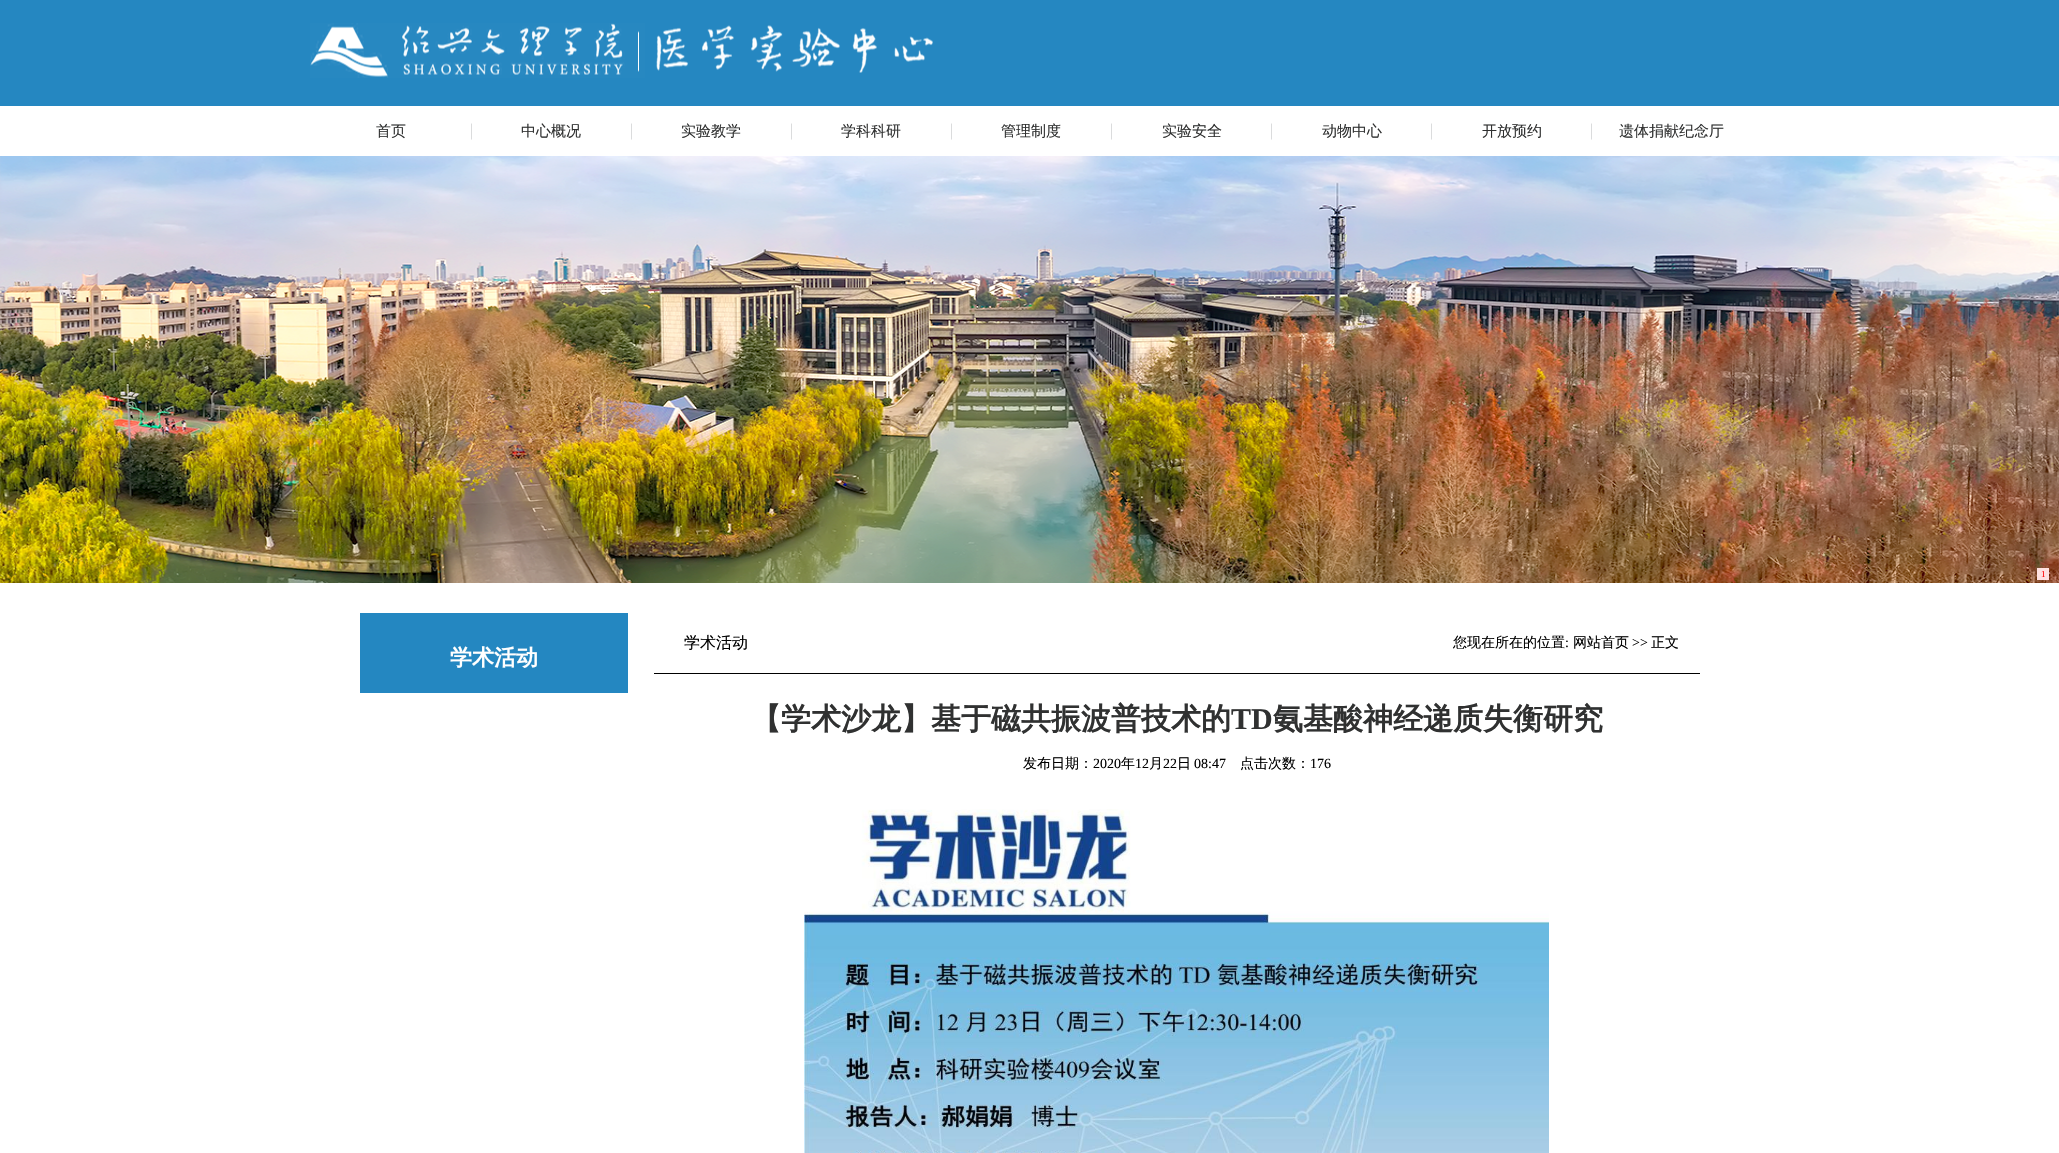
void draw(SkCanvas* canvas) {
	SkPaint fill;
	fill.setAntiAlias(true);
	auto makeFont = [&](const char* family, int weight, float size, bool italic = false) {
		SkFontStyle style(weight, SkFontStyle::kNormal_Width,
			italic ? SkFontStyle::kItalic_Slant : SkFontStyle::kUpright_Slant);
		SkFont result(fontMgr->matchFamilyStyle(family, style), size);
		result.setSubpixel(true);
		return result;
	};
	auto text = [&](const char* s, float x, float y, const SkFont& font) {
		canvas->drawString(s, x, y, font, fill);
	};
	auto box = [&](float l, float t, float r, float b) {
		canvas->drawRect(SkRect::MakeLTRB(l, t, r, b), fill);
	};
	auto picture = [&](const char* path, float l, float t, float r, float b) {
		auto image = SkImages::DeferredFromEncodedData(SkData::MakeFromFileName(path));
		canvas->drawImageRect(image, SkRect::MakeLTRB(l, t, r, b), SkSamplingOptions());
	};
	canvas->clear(0xFFFFFFFF);
	fill.setColor(0xFF2587C1);
	box(0, 0, 2059, 106);
	picture("image0.png", 310, 23, 933, 78);
	picture("image1.png", 471, 123, 472, 140);
	picture("image1.png", 631, 123, 632, 140);
	picture("image1.png", 791, 123, 792, 140);
	picture("image1.png", 951, 123, 952, 140);
	picture("image1.png", 1111, 123, 1112, 140);
	picture("image1.png", 1271, 123, 1272, 140);
	picture("image1.png", 1431, 123, 1432, 140);
	picture("image1.png", 1591, 123, 1592, 140);
	picture("image2.png", 0, 156, 2059, 583);
	fill.setColor(0xFFFFE1E1);
	box(2037, 568, 2049, 580);
	fill.setColor(0xFF2487C1);
	box(360, 613, 628, 693);
	fill.setColor(0xFF000000);
	box(654, 673, 1700, 674);
	picture("image3.png", 804, 809, 1549, 1153);
	auto font1 = makeFont("WenQuanYi Zen Hei", 500, 15);
	fill.setColor(0xFF303131);
	text("首页", 376, 136, font1);
	text("中心概况", 521, 136, font1);
	text("实验教学", 681, 136, font1);
	text("学科科研", 841, 136, font1);
	text("管理制度", 1001, 136, font1);
	text("实验安全", 1162, 136, font1);
	text("动物中心", 1322, 136, font1);
	text("开放预约", 1482, 136, font1);
	text("遗体捐献纪念厅", 1619, 136, font1);
	auto font2 = makeFont("Liberation Serif", 400, 9);
	fill.setColor(0xFFFF0000);
	text("1", 2041, 577, font2);
	auto font3 = makeFont("WenQuanYi Zen Hei", 700, 22);
	fill.setColor(0xFFFFFFFF);
	text("学术活动", 450, 665, font3);
	auto font4 = makeFont("WenQuanYi Zen Hei", 500, 16);
	fill.setColor(0xFF000000);
	text("学术活动", 684, 648, font4);
	auto font5 = makeFont("WenQuanYi Zen Hei", 500, 14);
	text("您现在所在的位置", 1453, 647, font5);
	auto font6 = makeFont("Liberation Serif", 400, 14);
	text(":", 1565, 647, font6);
	text("网站首页", 1573, 647, font5);
	text(">>", 1632, 647, font6);
	text("正文", 1651, 647, font5);
	auto font7 = makeFont("WenQuanYi Zen Hei", 700, 30);
	fill.setColor(0xFF303131);
	text("【学术沙龙】基于磁共振波普技术的", 751, 729, font7);
	auto font8 = makeFont("Liberation Serif", 700, 30);
	text("TD", 1231, 729, font8);
	text("氨基酸神经递质失衡研究", 1273, 729, font7);
	fill.setColor(0xFF000000);
	text("发布日期：", 1023, 768, font5);
	text("2020", 1093, 768, font6);
	text("年", 1121, 768, font5);
	text("12", 1135, 768, font6);
	text("月", 1149, 768, font5);
	text("22", 1163, 768, font6);
	text("日", 1177, 768, font5);
	text("08:47", 1194, 768, font6);
	text("点击次数：", 1240, 768, font5);
	text("176", 1310, 768, font6);
}
